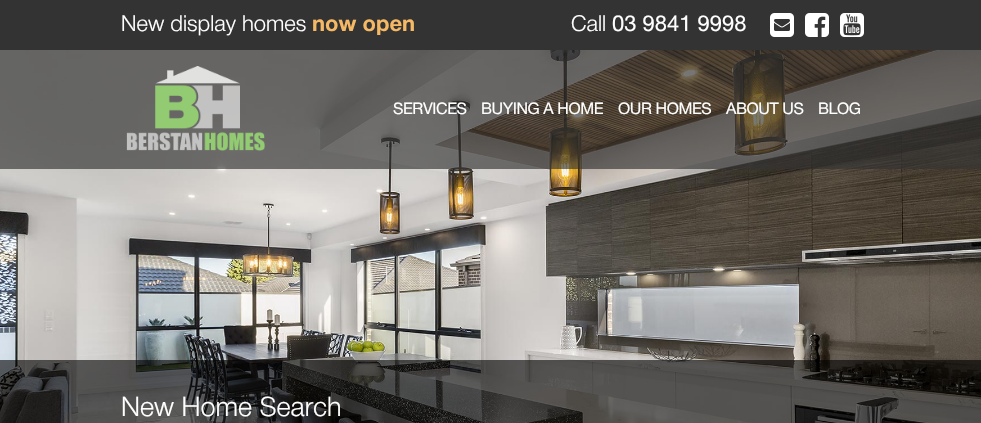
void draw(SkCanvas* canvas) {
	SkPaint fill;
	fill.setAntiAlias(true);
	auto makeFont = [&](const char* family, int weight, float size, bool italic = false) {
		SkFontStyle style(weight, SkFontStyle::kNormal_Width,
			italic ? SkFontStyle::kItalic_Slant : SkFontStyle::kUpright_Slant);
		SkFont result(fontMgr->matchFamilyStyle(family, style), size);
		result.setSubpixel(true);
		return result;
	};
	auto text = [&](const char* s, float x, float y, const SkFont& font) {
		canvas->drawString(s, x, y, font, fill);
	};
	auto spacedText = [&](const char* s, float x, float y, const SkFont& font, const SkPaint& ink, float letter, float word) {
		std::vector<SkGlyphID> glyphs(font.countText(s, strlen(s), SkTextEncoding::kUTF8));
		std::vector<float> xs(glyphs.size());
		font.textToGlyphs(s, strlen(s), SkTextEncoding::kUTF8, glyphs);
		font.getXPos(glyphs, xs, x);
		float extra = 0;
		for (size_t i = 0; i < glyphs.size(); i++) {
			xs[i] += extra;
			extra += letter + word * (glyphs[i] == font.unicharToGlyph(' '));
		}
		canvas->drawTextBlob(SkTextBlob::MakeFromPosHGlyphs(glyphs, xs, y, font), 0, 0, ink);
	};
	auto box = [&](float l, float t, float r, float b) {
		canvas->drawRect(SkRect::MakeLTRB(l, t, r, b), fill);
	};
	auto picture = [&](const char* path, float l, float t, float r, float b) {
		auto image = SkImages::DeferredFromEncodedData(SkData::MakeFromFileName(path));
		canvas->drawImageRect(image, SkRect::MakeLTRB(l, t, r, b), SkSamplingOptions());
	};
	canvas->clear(0xFF333333);
	picture("image0.png", 770, 13, 794, 37);
	picture("image1.png", 805, 13, 829, 37);
	picture("image2.png", 840, 13, 864, 37);
	picture("image3.png", 0, 50, 981, 423);
	fill.setColor(0xA6333333);
	box(0, 50, 981, 169);
	picture("image4.png", 126, 66, 265, 151);
	fill.setColor(0x99000000);
	box(0, 360, 981, 423);
	auto font1 = makeFont("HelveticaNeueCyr", 300, 22);
	fill.setColor(0xFFFFFFFF);
	text("New display homes", 121, 31, font1);
	auto font2 = makeFont("HelveticaNeueCyr", 700, 22);
	fill.setColor(0xFFF5B865);
	text("now open", 312, 31, font2);
	fill.setColor(0xFFFFFFFF);
	text("Call", 571, 31, font1);
	auto font3 = makeFont("HelveticaNeueCyr", 400, 22);
	text("03 9841 9998", 612, 31, font3);
	auto font4 = makeFont("HelveticaNeueCyr", 400, 16);
	spacedText("SERVICES", 393, 114, font4, fill, -0.4f, 0);
	spacedText("BUYING A HOME", 481, 114, font4, fill, -0.4f, 0);
	spacedText("OUR HOMES", 618, 114, font4, fill, -0.4f, 0);
	spacedText("ABOUT US", 726, 114, font4, fill, -0.4f, 0);
	spacedText("BLOG", 818, 114, font4, fill, -0.4f, 0);
	auto font5 = makeFont("HelveticaNeueCyr", 300, 27);
	text("New Home Search", 121, 416, font5);
}
